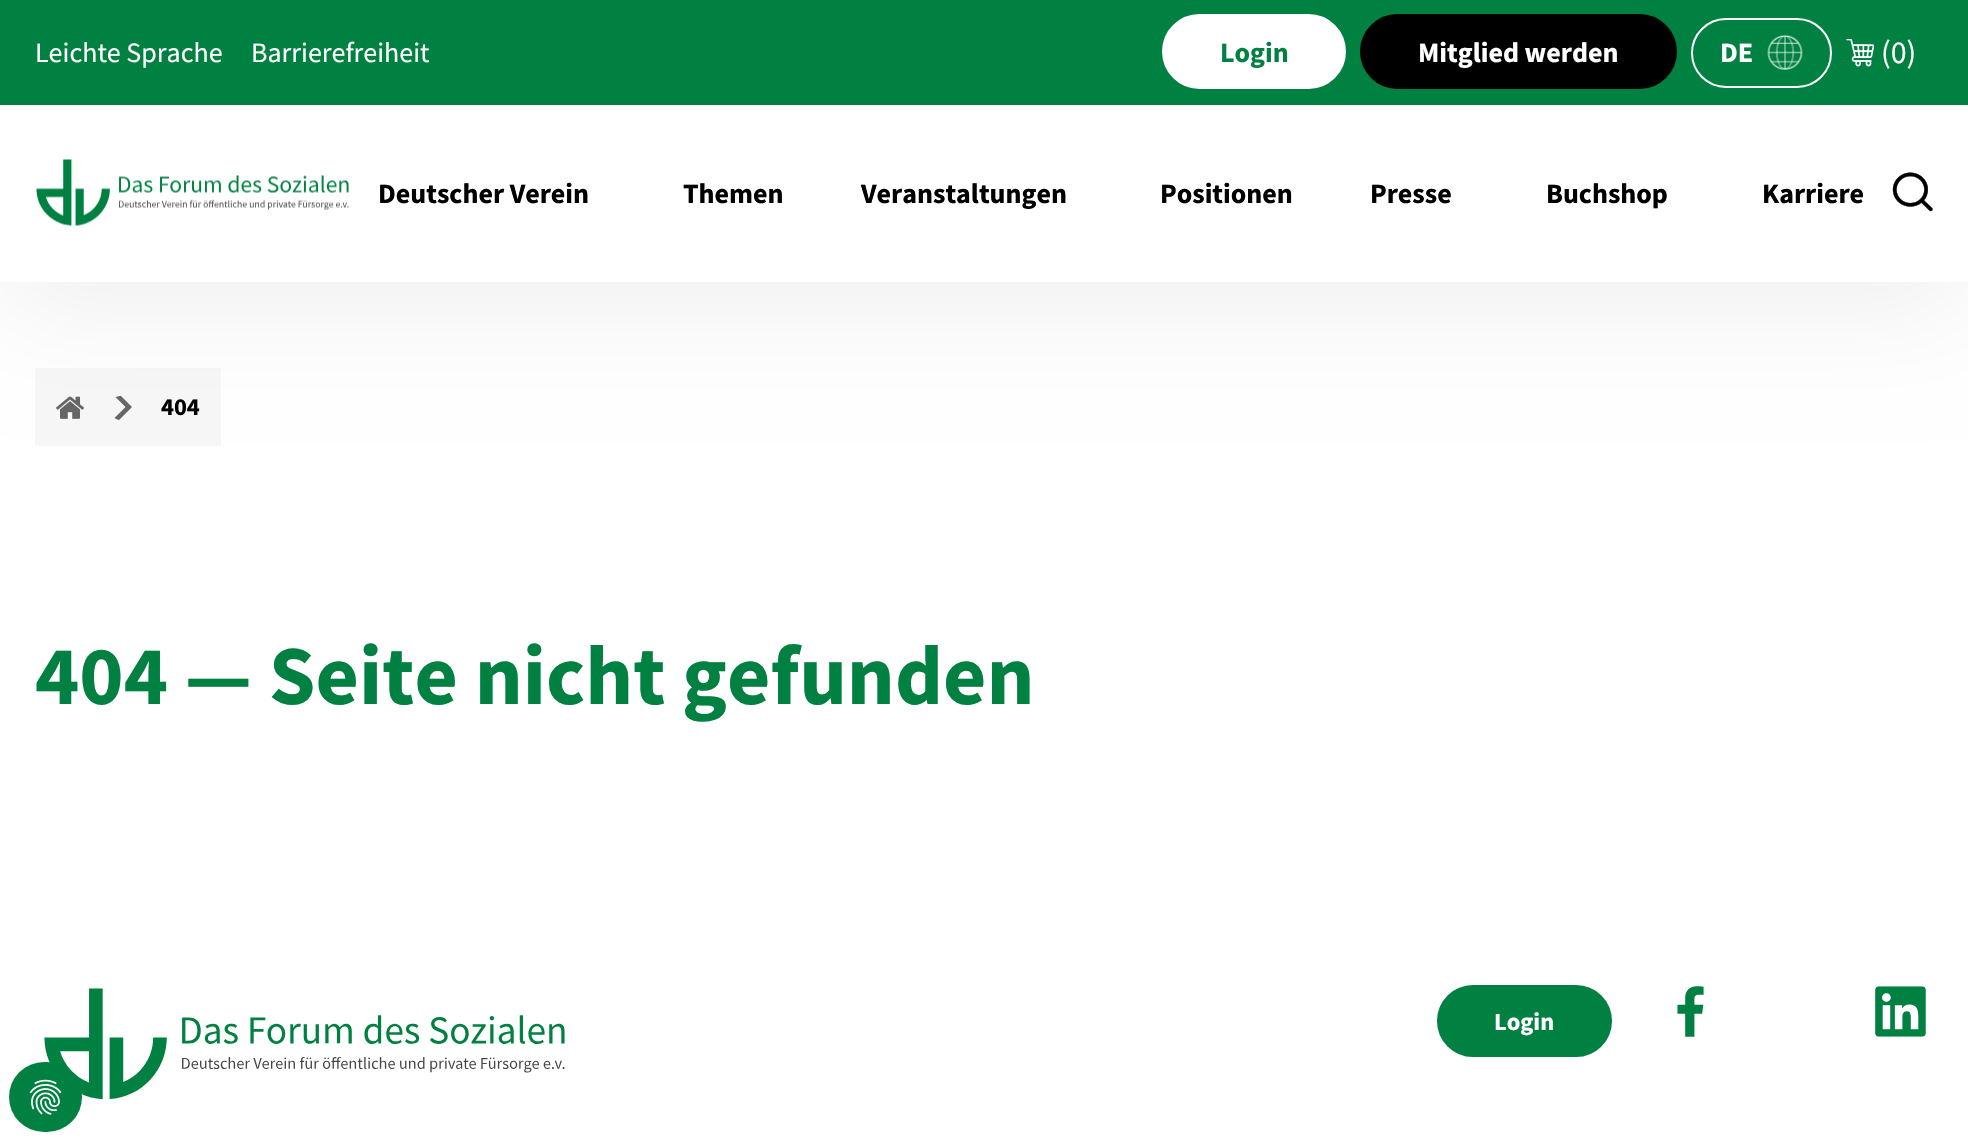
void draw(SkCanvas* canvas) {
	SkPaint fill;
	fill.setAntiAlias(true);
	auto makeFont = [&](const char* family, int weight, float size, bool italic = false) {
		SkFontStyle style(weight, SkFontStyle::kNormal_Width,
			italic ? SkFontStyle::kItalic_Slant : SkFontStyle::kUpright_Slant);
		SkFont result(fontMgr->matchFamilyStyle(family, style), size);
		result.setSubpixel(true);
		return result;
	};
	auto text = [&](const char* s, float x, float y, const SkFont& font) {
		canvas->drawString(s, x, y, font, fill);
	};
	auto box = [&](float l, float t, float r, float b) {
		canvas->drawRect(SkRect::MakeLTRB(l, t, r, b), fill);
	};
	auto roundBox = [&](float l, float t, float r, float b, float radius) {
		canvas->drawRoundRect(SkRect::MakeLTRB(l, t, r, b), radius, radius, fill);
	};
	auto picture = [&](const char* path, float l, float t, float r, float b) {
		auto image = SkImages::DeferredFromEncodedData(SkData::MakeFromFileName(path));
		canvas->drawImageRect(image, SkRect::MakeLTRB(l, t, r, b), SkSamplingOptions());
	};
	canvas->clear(0xFFFFFFFF);
	fill.setColor(0xFFF7F7F7);
	box(35, 368, 221, 446);
	picture("image4.png", 56, 396, 84, 419);
	fill.setColor(0xFF666666);
	canvas->drawPath(SkPathBuilder().moveTo(125.5f, 407).lineTo(115.5f, 397).cubicTo(117.5f, 396.5f, 119, 396, 121, 396).lineTo(132, 407).lineTo(119, 420).cubicTo(117.5f, 419.5f, 116, 419, 114.5f, 418).close().detach(), fill);
	fill.setColor(0x0F000000);
	fill.setMaskFilter(SkMaskFilter::MakeBlur(kNormal_SkBlurStyle, 56));
	canvas->drawRect(SkRect::MakeLTRB(0, 28, 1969, 310), fill);
	fill.setMaskFilter(nullptr);
	fill.setColor(0xFF008041);
	box(0, 0, 1968, 105);
	fill.setColor(0xFFFFFFFF);
	box(0, 105, 1968, 282);
	canvas->drawRoundRect(SkRect::MakeLTRB(1163, 15, 1345, 88), 36.5f, 36.5f, fill);
	fill.setStyle(SkPaint::kStroke_Style);
	fill.setStrokeWidth(2);
	canvas->drawRoundRect(SkRect::MakeLTRB(1163, 15, 1345, 88), 36.5f, 36.5f, fill);
	fill.setStyle(SkPaint::kFill_Style);
	fill.setColor(0xFF000000);
	canvas->drawRoundRect(SkRect::MakeLTRB(1361, 15, 1676, 88), 36.5f, 36.5f, fill);
	fill.setStyle(SkPaint::kStroke_Style);
	canvas->drawRoundRect(SkRect::MakeLTRB(1361, 15, 1676, 88), 36.5f, 36.5f, fill);
	picture("image0.png", 1767, 34, 1803, 70);
	fill.setColor(0xFFFFFFFF);
	canvas->drawRoundRect(SkRect::MakeLTRB(1692, 19, 1831, 87), 34, 34, fill);
	picture("image1.png", 1846, 39, 1874, 67);
	picture("image2.png", 36, 159, 349, 226);
	picture("image3.png", 1892, 172, 1933, 212);
	picture("image5.png", 44, 988, 565, 1100);
	fill.setStyle(SkPaint::kFill_Style);
	fill.setColor(0xFFF5FAF7);
	box(1769, 985, 1770, 986);
	fill.setColor(0xFF008041);
	canvas->drawRoundRect(SkRect::MakeLTRB(1438, 986, 1611, 1056), 35, 35, fill);
	fill.setStyle(SkPaint::kStroke_Style);
	canvas->drawRoundRect(SkRect::MakeLTRB(1438, 986, 1611, 1056), 35, 35, fill);
	picture("image6.png", 1677, 986, 1704, 1037);
	picture("image7.png", 1875, 986, 1926, 1037);
	fill.setStyle(SkPaint::kFill_Style);
	roundBox(9, 1062, 82, 1132, 35);
	picture("image8.png", 29, 1079, 62, 1115);
	auto font1 = makeFont("Source Sans Pro", 400, 28);
	fill.setColor(0xFFFFFFFF);
	text("Leichte Sprache", 35, 62, font1);
	text("Barrierefreiheit", 251, 62, font1);
	auto font2 = makeFont("Source Sans Pro", 700, 28);
	fill.setColor(0xFF008041);
	text("Login", 1220, 62, font2);
	fill.setColor(0xFFFFFFFF);
	text("Mitglied werden", 1418, 62, font2);
	text("DE", 1720, 62, font2);
	auto font3 = makeFont("Source Sans Pro", 400, 32);
	text("(0)", 1881, 63, font3);
	fill.setColor(0xFF000000);
	text("Deutscher Verein", 378, 203, font2);
	text("Themen", 683, 203, font2);
	text("Veranstaltungen", 861, 203, font2);
	text("Positionen", 1160, 203, font2);
	text("Presse", 1370, 203, font2);
	text("Buchshop", 1546, 203, font2);
	text("Karriere", 1762, 203, font2);
	auto font4 = makeFont("Source Sans Pro", 700, 24.5f);
	text("404", 161, 415, font4);
	auto font5 = makeFont("Source Sans Pro", 700, 84);
	fill.setColor(0xFF008041);
	text("404 — Seite nicht gefunden", 35, 704, font5);
	fill.setColor(0xFFFFFFFF);
	text("Login", 1494, 1030, font4);
}
